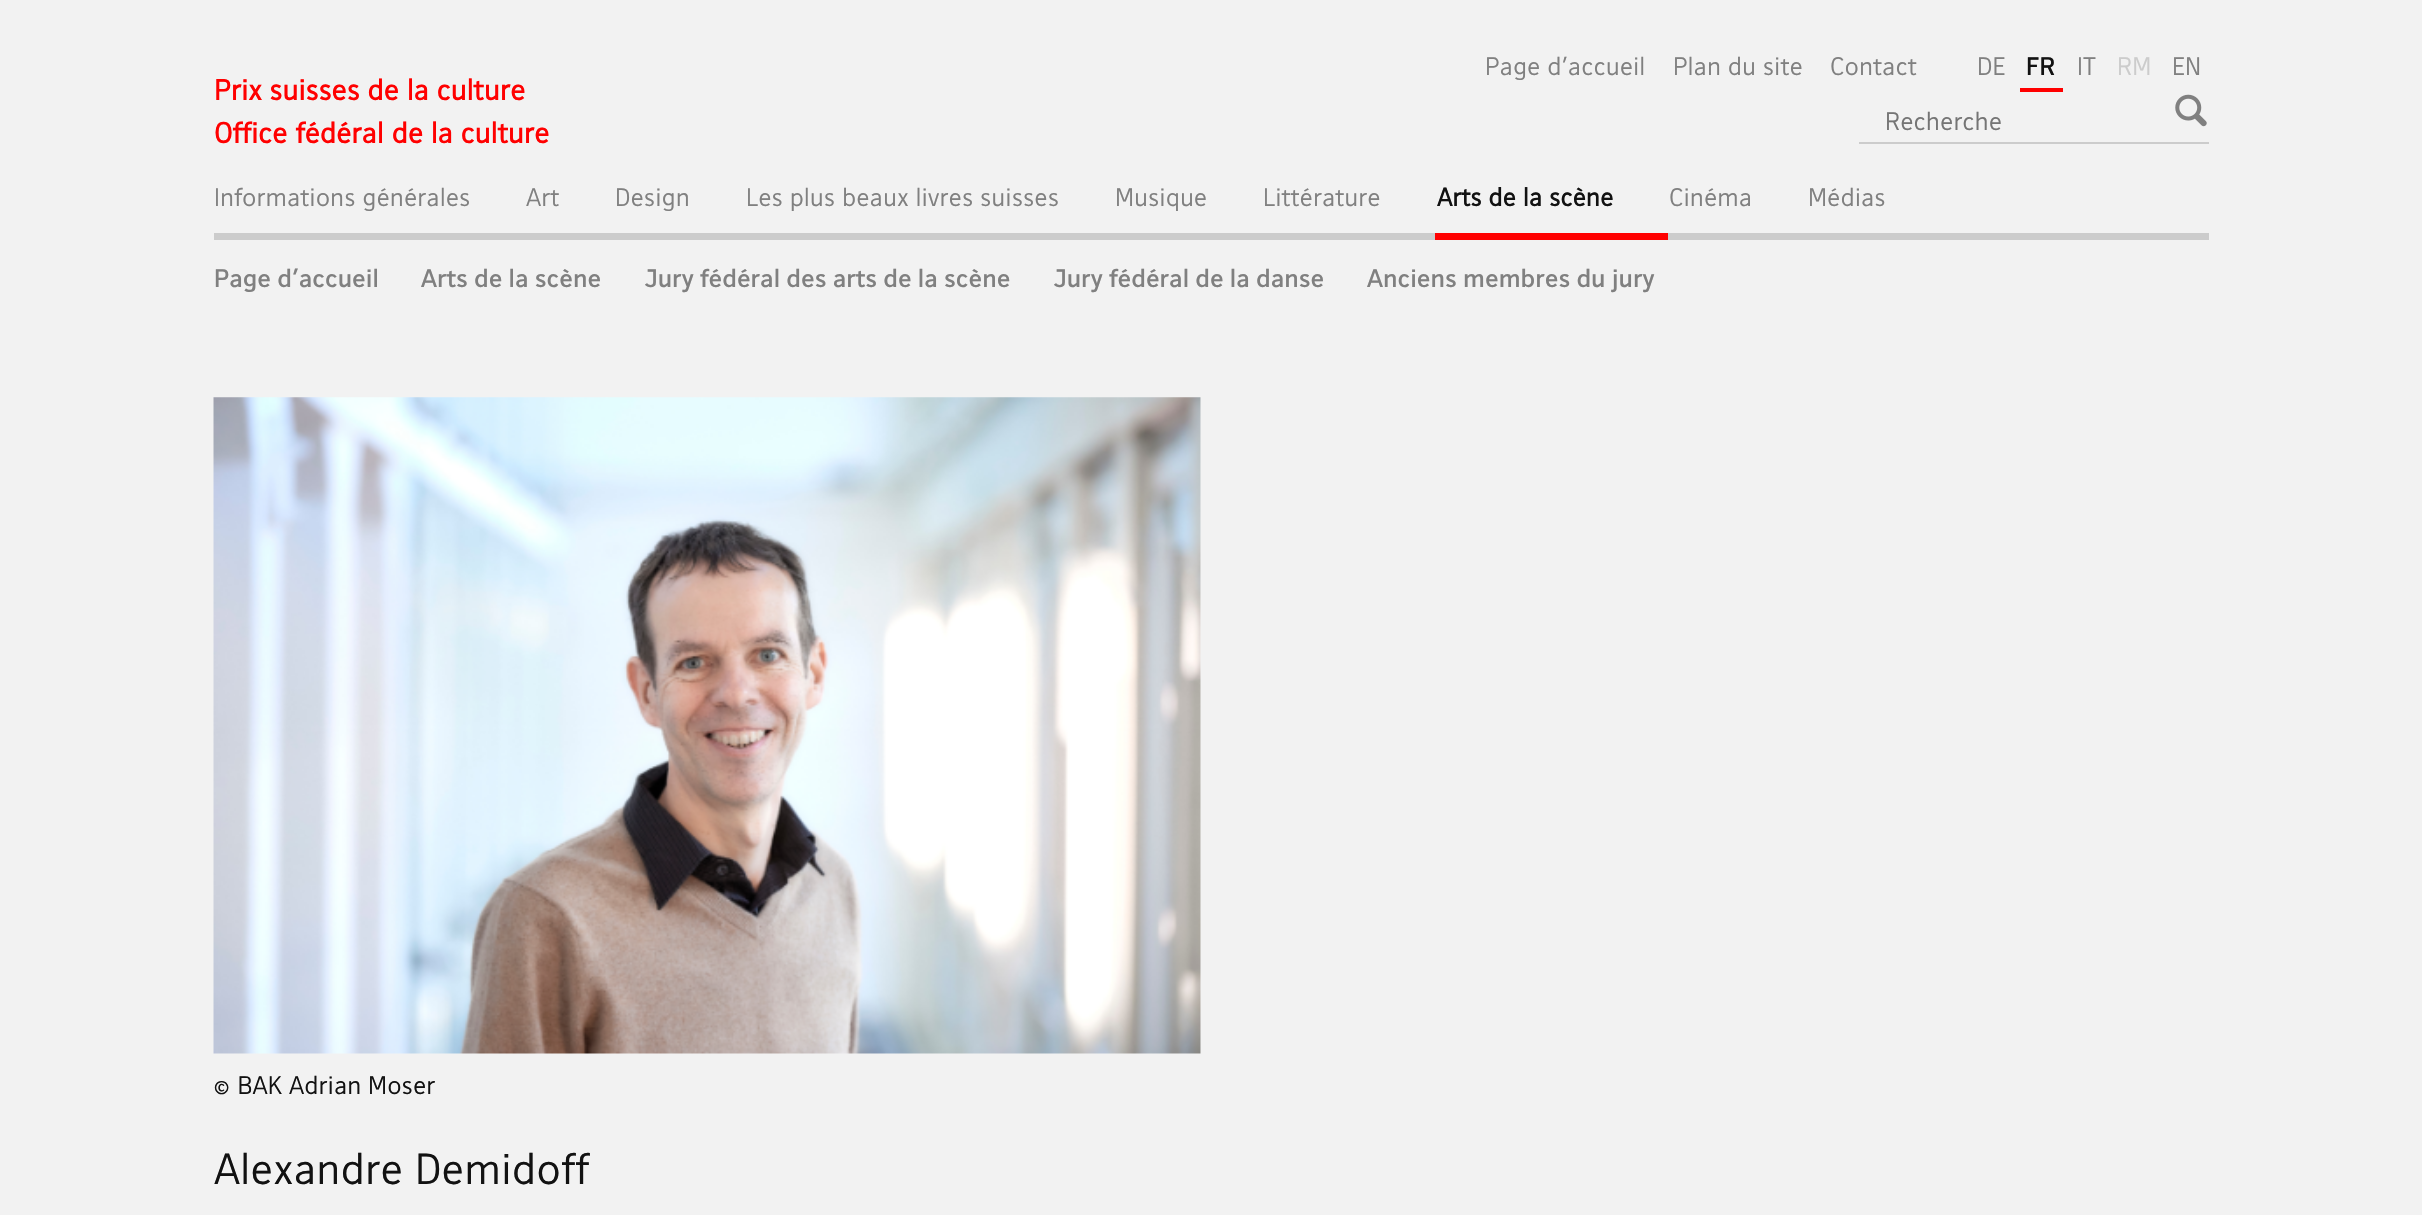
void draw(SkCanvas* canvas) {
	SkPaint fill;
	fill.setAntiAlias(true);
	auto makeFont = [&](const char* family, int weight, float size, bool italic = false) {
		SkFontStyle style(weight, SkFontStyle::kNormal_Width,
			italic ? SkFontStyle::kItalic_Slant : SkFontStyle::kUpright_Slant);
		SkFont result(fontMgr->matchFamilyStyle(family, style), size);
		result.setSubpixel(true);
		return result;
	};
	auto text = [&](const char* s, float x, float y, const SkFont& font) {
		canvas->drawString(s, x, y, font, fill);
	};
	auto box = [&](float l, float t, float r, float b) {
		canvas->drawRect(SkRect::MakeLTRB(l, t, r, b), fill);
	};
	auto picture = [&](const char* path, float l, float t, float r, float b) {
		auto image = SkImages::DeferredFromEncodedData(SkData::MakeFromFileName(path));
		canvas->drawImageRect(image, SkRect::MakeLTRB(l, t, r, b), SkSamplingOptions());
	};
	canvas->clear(0xFFF2F2F2);
	fill.setColor(0xFFFF0000);
	box(2020, 88, 2063, 92);
	fill.setColor(0xFFCCCCCC);
	box(1859, 142, 2209, 144);
	picture("image0.png", 2175, 94, 2207, 127);
	box(214, 233, 2209, 240);
	fill.setColor(0xFFFF0000);
	box(1435, 233, 1668, 240);
	picture("image1.png", 213, 397, 1201, 1054);
	auto font1 = makeFont("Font", 400, 24.5f);
	fill.setColor(0xFF808080);
	text("Page d'accueil", 1485, 75, font1);
	text("Plan du site", 1673, 75, font1);
	text("Contact", 1830, 75, font1);
	text("DE", 1977, 75, font1);
	auto font2 = makeFont("Font", 700, 24.5f);
	fill.setColor(0xFF121212);
	text("FR", 2026, 75, font2);
	fill.setColor(0xFF808080);
	text("IT", 2077, 75, font1);
	fill.setColor(0xFFCCCCCC);
	text("RM", 2117, 75, font1);
	fill.setColor(0xFF808080);
	text("EN", 2172, 75, font1);
	auto font3 = makeFont("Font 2", 700, 28);
	fill.setColor(0xFFFF0000);
	text("Prix suisses de la culture", 214, 100, font3);
	text("Office fédéral de la culture", 214, 143, font3);
	fill.setColor(0xFF757575);
	text("Recherche", 1885, 130, font1);
	fill.setColor(0xFF808080);
	text("Informations générales", 214, 206, font1);
	text("Art", 526, 206, font1);
	text("Design", 615, 206, font1);
	text("Les plus beaux livres suisses", 746, 206, font1);
	text("Musique", 1115, 206, font1);
	text("Littérature", 1263, 206, font1);
	auto font4 = makeFont("Font 2", 700, 24.5f);
	fill.setColor(0xFF121212);
	text("Arts de la scène", 1437, 206, font4);
	fill.setColor(0xFF808080);
	text("Cinéma", 1669, 206, font1);
	text("Médias", 1808, 206, font1);
	text("Page d'accueil", 214, 287, font2);
	text("Arts de la scène", 421, 287, font2);
	text("Jury fédéral des arts de la scène", 644, 287, font2);
	text("Jury fédéral de la danse", 1053, 287, font2);
	text("Anciens membres du jury", 1367, 287, font2);
	fill.setColor(0xFF121212);
	text("© BAK Adrian Moser", 214, 1094, font1);
	auto font5 = makeFont("Font", 400, 42);
	text("Alexandre Demidoff", 214, 1184, font5);
}
